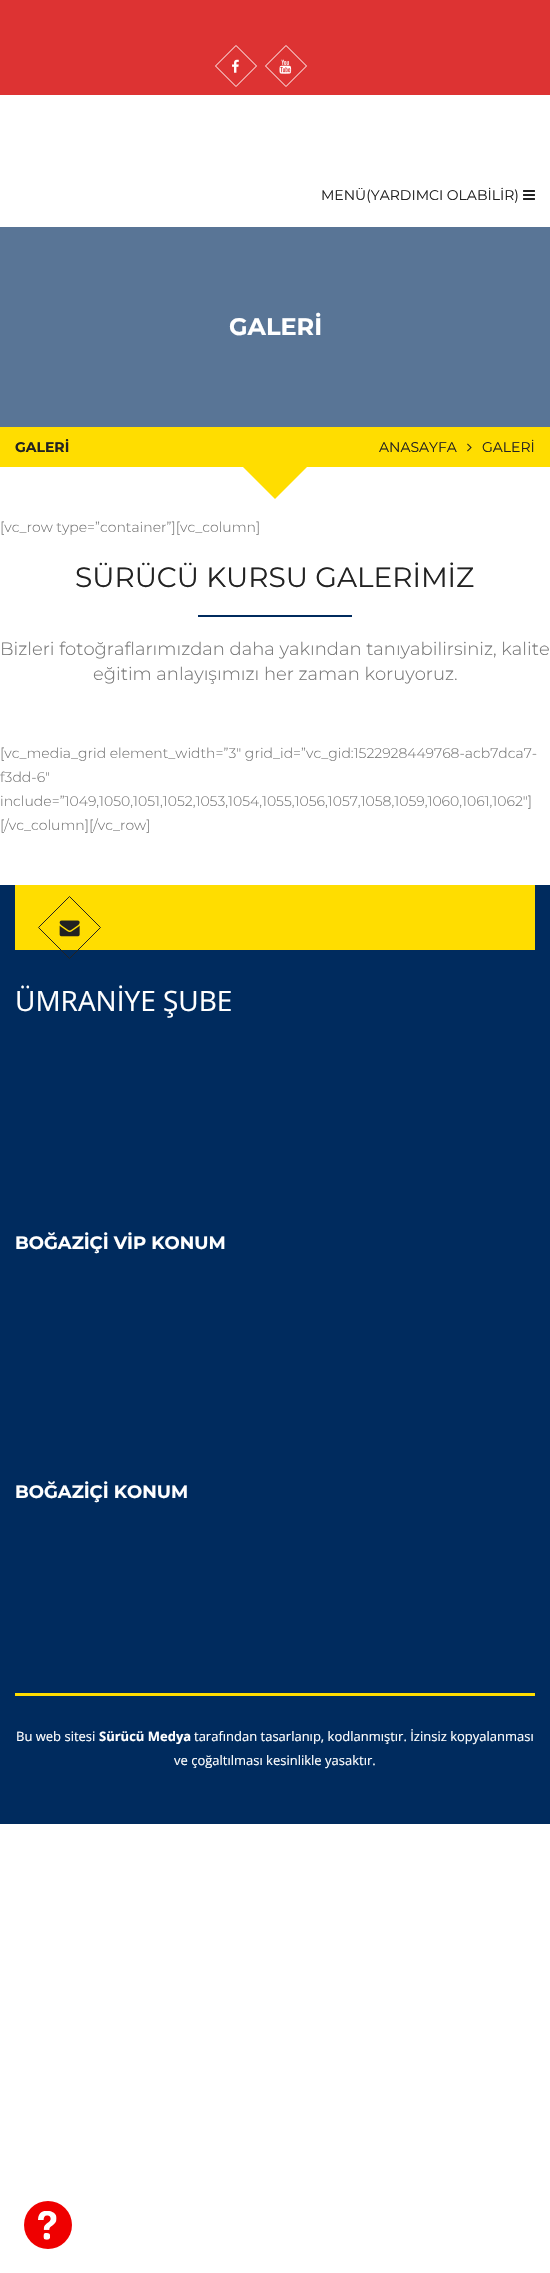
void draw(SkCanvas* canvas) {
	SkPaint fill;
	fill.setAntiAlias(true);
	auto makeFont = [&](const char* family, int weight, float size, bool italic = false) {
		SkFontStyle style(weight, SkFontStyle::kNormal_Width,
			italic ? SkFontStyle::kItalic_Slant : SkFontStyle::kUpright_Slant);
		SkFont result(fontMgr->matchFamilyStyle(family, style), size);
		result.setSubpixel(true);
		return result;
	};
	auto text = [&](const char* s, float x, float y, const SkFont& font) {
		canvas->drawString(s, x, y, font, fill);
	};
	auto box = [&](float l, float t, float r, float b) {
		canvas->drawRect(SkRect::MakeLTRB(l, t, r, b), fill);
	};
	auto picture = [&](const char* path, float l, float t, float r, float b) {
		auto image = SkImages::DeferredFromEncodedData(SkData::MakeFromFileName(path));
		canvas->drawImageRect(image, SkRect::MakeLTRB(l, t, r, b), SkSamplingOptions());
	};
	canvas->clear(0xFFFFFFFF);
	fill.setColor(0xFFDD3333);
	box(0, 0, 550, 95);
	fill.setStyle(SkPaint::kStroke_Style);
	fill.setStrokeWidth(1);
	fill.setColor(0xFFFFFFFF);
	canvas->drawPath(SkPathBuilder().moveTo(236, 45.5f).lineTo(256.5f, 66).lineTo(236, 86.5f).lineTo(215.5f, 66).close().detach(), fill);
	picture("image0.png", 232, 59, 239, 73);
	canvas->drawPath(SkPathBuilder().moveTo(286, 45.5f).lineTo(306.5f, 66).lineTo(286, 86.5f).lineTo(265.5f, 66).close().detach(), fill);
	picture("image1.png", 279, 59, 292, 74);
	picture("image2.png", 523, 190, 535, 200);
	fill.setStyle(SkPaint::kFill_Style);
	fill.setColor(0xFF597596);
	box(0, 227, 550, 427);
	fill.setColor(0xFFFFDD00);
	box(0, 427, 550, 467);
	picture("image3.png", 467, 443, 472, 452);
	canvas->drawPath(SkPathBuilder().moveTo(243, 467).lineTo(307, 467).lineTo(275, 499).close().detach(), fill);
	fill.setColor(0xFF002B5E);
	box(198, 615, 352, 617);
	box(0, 885, 550, 1824);
	fill.setColor(0xFFFFDD00);
	box(15, 885, 535, 950);
	fill.setStyle(SkPaint::kStroke_Style);
	fill.setColor(0xFF222222);
	canvas->drawPath(SkPathBuilder().moveTo(69.5f, 896.5f).lineTo(100.5f, 927.5f).lineTo(69.5f, 958.5f).lineTo(38.5f, 927.5f).close().detach(), fill);
	picture("image4.png", 59, 920, 80, 937);
	fill.setStyle(SkPaint::kFill_Style);
	fill.setColor(0xFFFFDD00);
	box(15, 1693, 535, 1696);
	fill.setColor(0xFFEF0000);
	canvas->drawCircle(48, 2225, 24, fill);
	picture("image5.png", 38, 2211, 57, 2240);
	auto font1 = makeFont("Montserrat", 400, 14);
	fill.setColor(0xFF222222);
	text("MENÜ(YARDIMCI OLABİLİR)", 321, 200, font1);
	auto font2 = makeFont("Montserrat", 700, 24);
	fill.setColor(0xFFFFFFFF);
	text("GALERİ", 229, 335, font2);
	auto font3 = makeFont("Montserrat", 700, 14);
	fill.setColor(0xFF222222);
	text("GALERİ", 15, 452, font3);
	text("ANASAYFA", 379, 452, font1);
	text("GALERİ", 482, 452, font1);
	auto font4 = makeFont("Montserrat", 300, 14);
	fill.setColor(0xFF777777);
	text("[vc_row type=”container”][vc_column]", 0, 532, font4);
	auto font5 = makeFont("Montserrat", 400, 28);
	fill.setColor(0xFF222222);
	text("SÜRÜCÜ KURSU GALERİMİZ", 75, 587, font5);
	auto font6 = makeFont("Montserrat", 300, 18);
	fill.setColor(0xFF777777);
	text("Bizleri fotoğraflarımızdan daha yakından tanıyabilirsiniz, kalite", 0, 655, font6);
	text("eğitim anlayışımızı her zaman koruyoruz.", 93, 680, font6);
	text("[vc_media_grid element_width=”3″ grid_id=”vc_gid:1522928449768-acb7dca7-", 0, 758, font4);
	text("f3dd-6″", 0, 782, font4);
	text("include=”1049,1050,1051,1052,1053,1054,1055,1056,1057,1058,1059,1060,1061,1062″]", 0, 806, font4);
	text("[/vc_column][/vc_row]", 0, 830, font4);
	auto font7 = makeFont("Open Sans", 400, 28);
	fill.setColor(0xFFFFFFFF);
	text("ÜMRANİYE ŞUBE", 15, 1011, font7);
	auto font8 = makeFont("Montserrat", 700, 18);
	text("BOĞAZİÇİ VİP KONUM", 15, 1249, font8);
	text("BOĞAZİÇİ KONUM", 15, 1498, font8);
	auto font9 = makeFont("Open Sans", 400, 13);
	text("Bu web sitesi", 16, 1741, font9);
	auto font10 = makeFont("Open Sans", 700, 13);
	text("Sürücü Medya", 99, 1741, font10);
	text("tarafından tasarlanıp, kodlanmıştır. İzinsiz kopyalanması", 194, 1741, font9);
	text("ve çoğaltılması kesinlikle yasaktır.", 174, 1765, font9);
}
